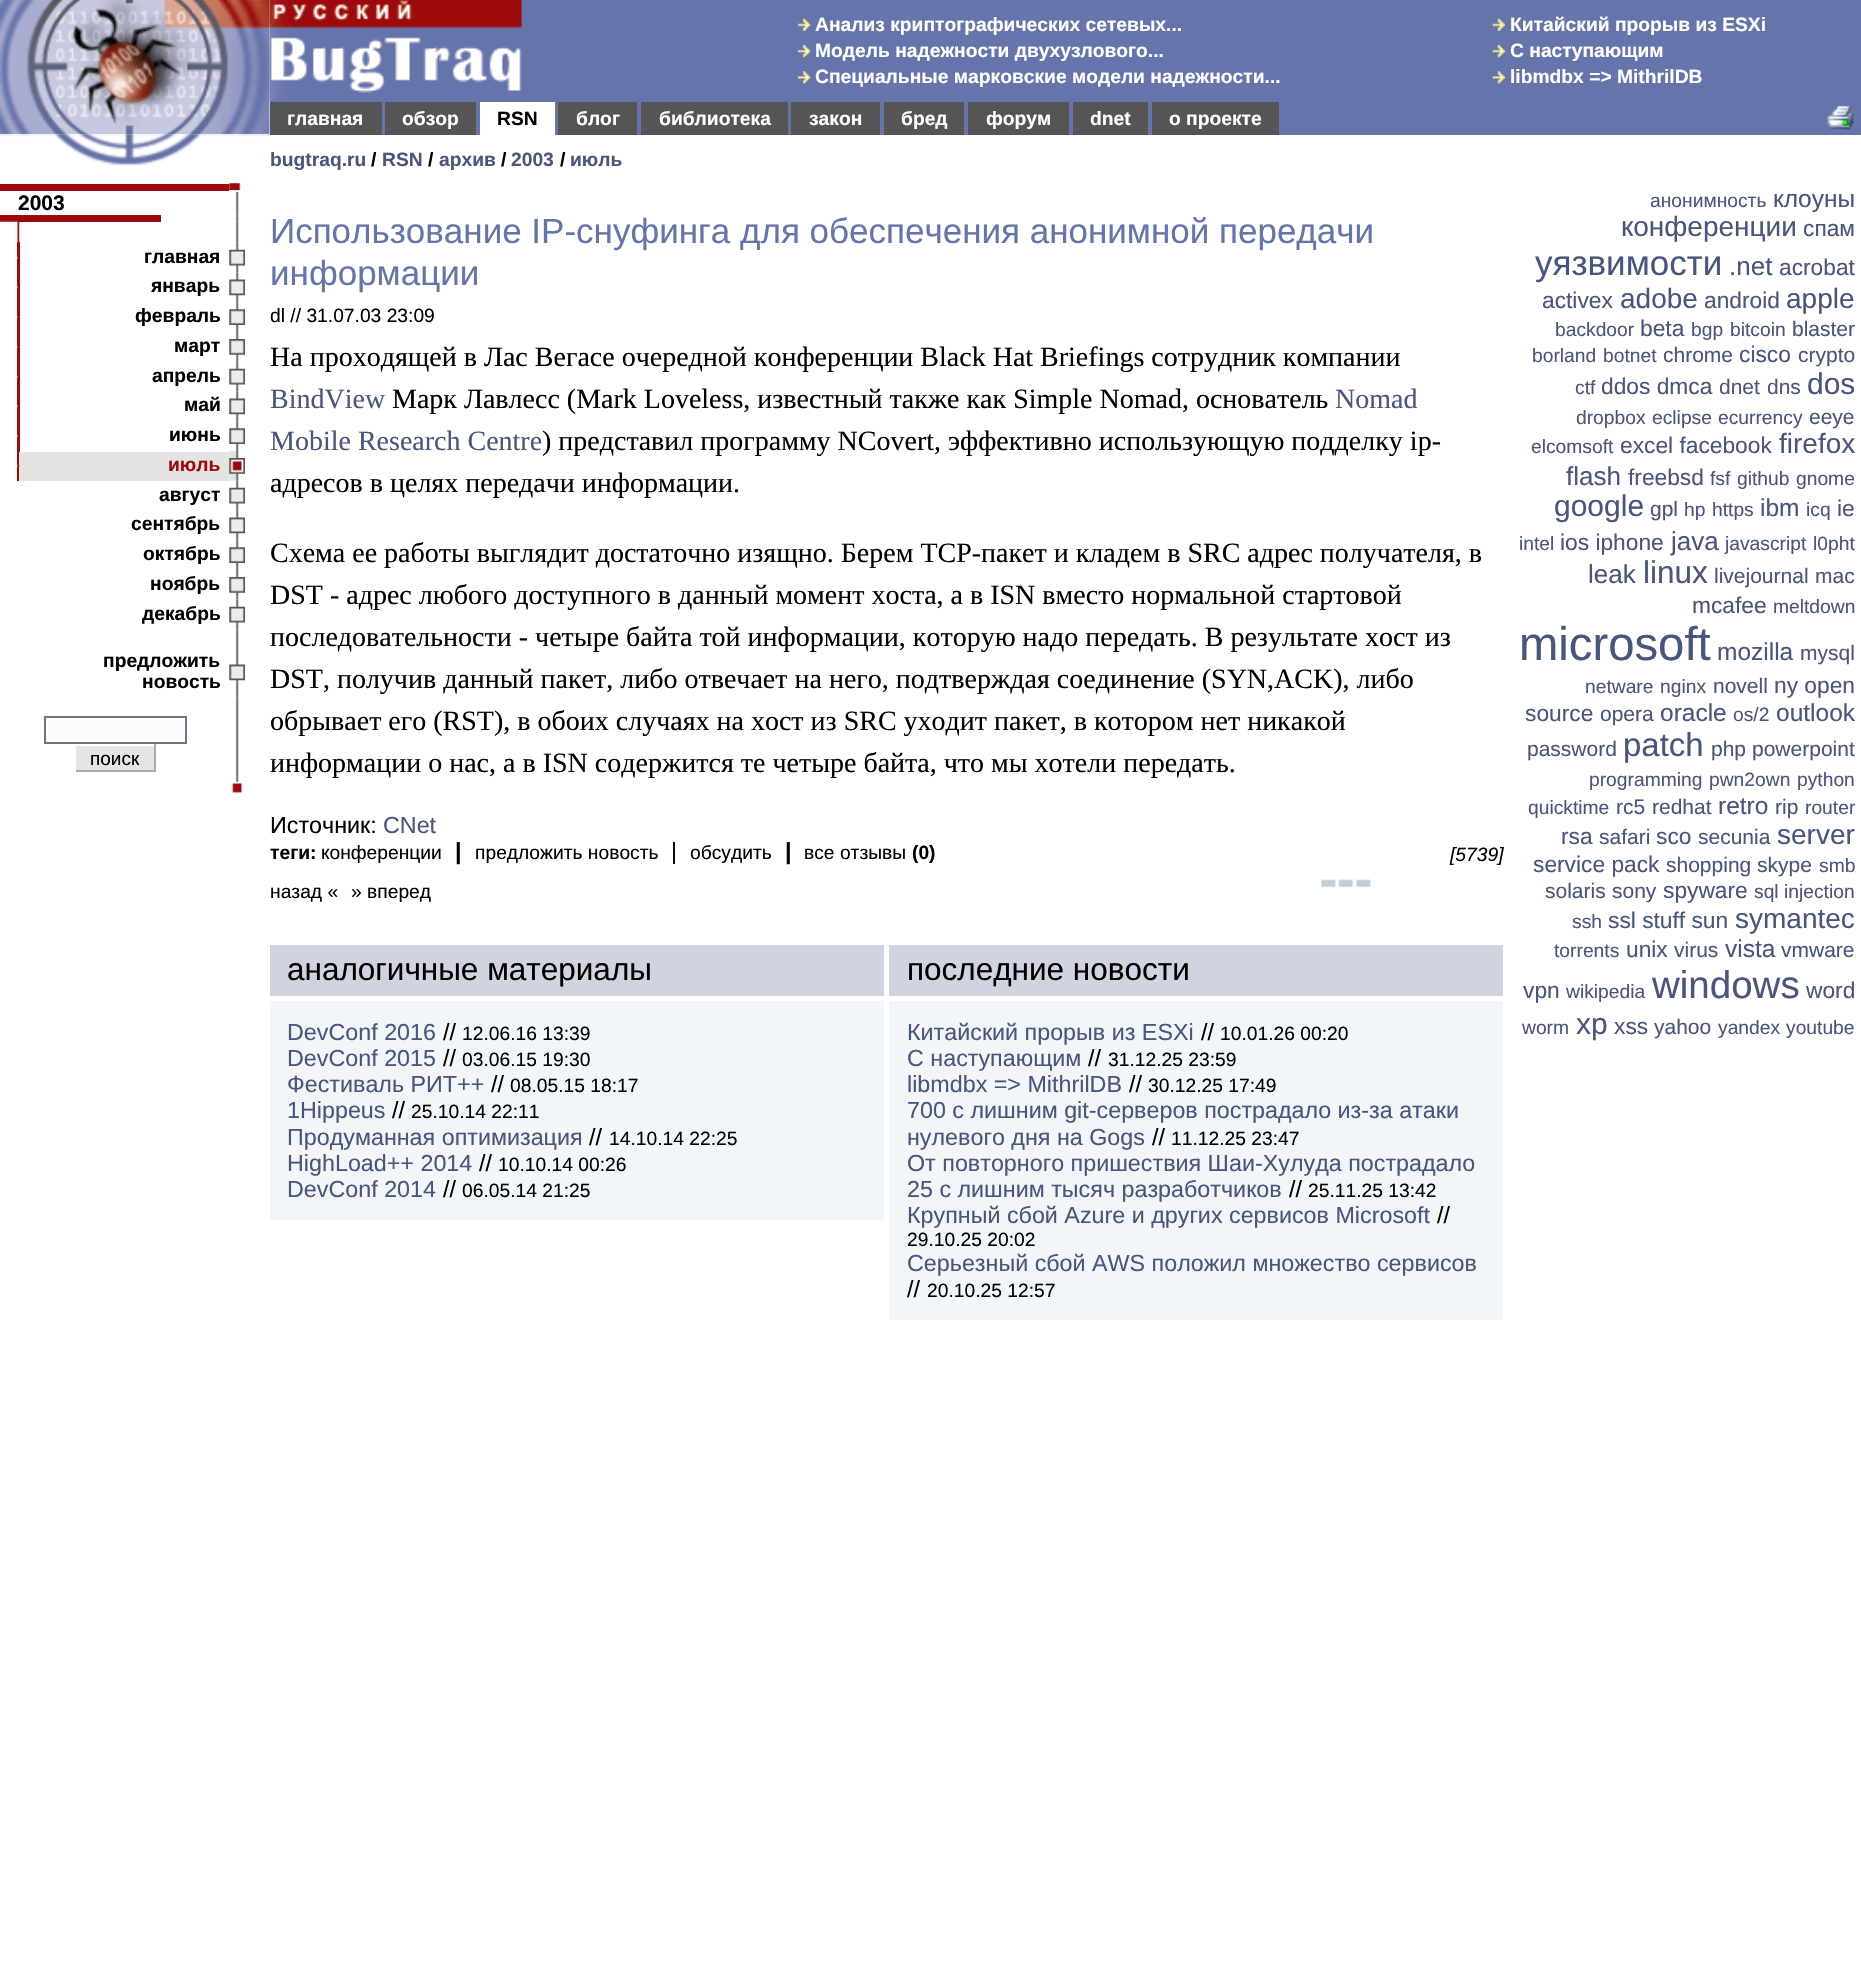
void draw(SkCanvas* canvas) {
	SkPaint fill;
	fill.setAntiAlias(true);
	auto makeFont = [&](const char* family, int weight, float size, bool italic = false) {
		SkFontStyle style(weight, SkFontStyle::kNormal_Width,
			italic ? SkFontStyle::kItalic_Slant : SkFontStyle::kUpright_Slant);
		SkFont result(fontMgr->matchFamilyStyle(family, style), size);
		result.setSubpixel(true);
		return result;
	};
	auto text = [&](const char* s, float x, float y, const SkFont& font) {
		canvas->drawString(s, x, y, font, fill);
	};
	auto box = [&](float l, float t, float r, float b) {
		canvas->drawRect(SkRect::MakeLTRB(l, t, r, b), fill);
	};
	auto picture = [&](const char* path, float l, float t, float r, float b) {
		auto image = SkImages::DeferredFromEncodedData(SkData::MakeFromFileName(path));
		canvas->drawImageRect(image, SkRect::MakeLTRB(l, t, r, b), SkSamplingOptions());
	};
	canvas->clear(0xFFFFFFFF);
	fill.setColor(0xFF6574AB);
	box(270, 0, 1861, 102);
	picture("image0.png", 0, 0, 270, 135);
	picture("image1.png", 0, 134, 270, 166);
	picture("image2.png", 269, 0, 522, 101);
	picture("image3.png", 798, 18, 811, 31);
	picture("image4.png", 798, 45, 811, 58);
	picture("image5.png", 798, 71, 811, 84);
	picture("image6.png", 1492, 18, 1505, 31);
	picture("image7.png", 1492, 45, 1505, 58);
	picture("image8.png", 1492, 71, 1505, 84);
	box(382, 102, 1861, 135);
	fill.setColor(0xFF555555);
	box(270, 102, 382, 135);
	box(385, 102, 476, 135);
	fill.setColor(0xFFFFFFFF);
	box(480, 102, 555, 135);
	fill.setColor(0xFF555555);
	box(558, 102, 637, 135);
	box(641, 102, 788, 135);
	box(791, 102, 880, 135);
	box(884, 102, 964, 135);
	box(968, 102, 1069, 135);
	box(1073, 102, 1148, 135);
	box(1152, 102, 1279, 135);
	picture("image9.png", 1827, 105, 1854, 130);
	fill.setColor(0xFF9C0A0E);
	box(0, 184, 229, 191);
	picture("image11.png", 229, 190, 245, 215);
	picture("image10.png", 229, 183, 245, 191);
	picture("image12.png", 229, 190, 245, 192);
	box(0, 215, 161, 222);
	picture("image13.png", 235, 214, 239, 222);
	box(17, 242, 20, 481);
	picture("image14.png", 0, 221, 20, 243);
	picture("image15.png", 235, 221, 239, 243);
	picture("image16.png", 17, 256, 18, 259);
	picture("image17.png", 235, 242, 239, 273);
	picture("image18.png", 229, 249, 245, 266);
	picture("image19.png", 17, 286, 18, 289);
	picture("image20.png", 235, 272, 239, 303);
	picture("image21.png", 229, 279, 245, 296);
	picture("image22.png", 17, 316, 18, 318);
	picture("image23.png", 235, 302, 239, 332);
	picture("image24.png", 229, 309, 245, 325);
	picture("image25.png", 17, 346, 18, 348);
	picture("image26.png", 235, 332, 239, 362);
	picture("image27.png", 229, 339, 245, 355);
	picture("image16.png", 17, 375, 18, 378);
	picture("image17.png", 235, 361, 239, 392);
	picture("image18.png", 229, 368, 245, 385);
	picture("image19.png", 17, 405, 18, 408);
	picture("image20.png", 235, 391, 239, 422);
	picture("image21.png", 229, 398, 245, 415);
	picture("image22.png", 17, 435, 18, 437);
	picture("image23.png", 235, 421, 239, 451);
	picture("image24.png", 229, 428, 245, 444);
	fill.setColor(0xFFE3E3E1);
	box(19, 452, 229, 481);
	picture("image28.png", 17, 465, 20, 467);
	picture("image29.png", 229, 451, 239, 481);
	picture("image30.png", 229, 458, 245, 474);
	picture("image31.png", 230, 480, 239, 511);
	picture("image18.png", 229, 487, 245, 504);
	picture("image20.png", 235, 510, 239, 541);
	picture("image21.png", 229, 517, 245, 534);
	picture("image23.png", 235, 540, 239, 570);
	picture("image24.png", 229, 547, 245, 563);
	picture("image26.png", 235, 570, 239, 600);
	picture("image27.png", 229, 577, 245, 593);
	picture("image17.png", 235, 599, 239, 630);
	picture("image18.png", 229, 606, 245, 623);
	picture("image32.png", 235, 629, 239, 647);
	picture("image33.png", 235, 647, 239, 698);
	picture("image21.png", 229, 664, 245, 681);
	fill.setColor(0xFFFCFCFF);
	canvas->drawRect(SkRect::MakeLTRB(45, 717, 186, 743), fill);
	fill.setStyle(SkPaint::kStroke_Style);
	fill.setStrokeWidth(2);
	fill.setColor(0xFF6E767E);
	canvas->drawRect(SkRect::MakeLTRB(45, 717, 186, 743), fill);
	fill.setStyle(SkPaint::kFill_Style);
	fill.setColor(0xFFE5E5E5);
	box(76, 746, 154, 770);
	fill.setColor(0xFFAAAAAA);
	box(154, 744, 156, 772);
	box(74, 770, 156, 772);
	fill.setColor(0xFFFFFFFF);
	box(74, 770, 76, 772);
	picture("image34.png", 235, 697, 239, 782);
	picture("image35.png", 232, 781, 242, 794);
	picture("image36.png", 1321, 879, 1371, 888);
	fill.setColor(0xFFD2D3E1);
	box(270, 945, 884, 996);
	fill.setColor(0xFFF3F6F9);
	box(270, 1001, 884, 1220);
	fill.setColor(0xFFD2D3E1);
	box(889, 945, 1503, 996);
	fill.setColor(0xFFF3F6F9);
	box(889, 1001, 1503, 1320);
	auto font1 = makeFont("Liberation Sans", 700, 19.25f);
	fill.setColor(0xFFFFFFFF);
	text("Анализ криптографических сетевых...", 815, 31, font1);
	text("Модель надежности двухузлового...", 815, 57, font1);
	text("Специальные марковские модели надежности...", 815, 83, font1);
	text("Китайский прорыв из ESXi", 1510, 31, font1);
	text("С наступающим", 1510, 57, font1);
	text("libmdbx => MithrilDB", 1510, 83, font1);
	text("главная", 287, 125, font1);
	text("обзор", 402, 125, font1);
	fill.setColor(0xFF000000);
	text("RSN", 497, 125, font1);
	fill.setColor(0xFFFFFFFF);
	text("блог", 576, 125, font1);
	text("библиотека", 659, 125, font1);
	text("закон", 809, 125, font1);
	text("бред", 901, 125, font1);
	text("форум", 986, 125, font1);
	text("dnet", 1090, 125, font1);
	text("о проекте", 1169, 125, font1);
	fill.setColor(0xFF4A557E);
	text("bugtraq.ru", 270, 166, font1);
	fill.setColor(0xFF000000);
	text("/", 371, 166, font1);
	fill.setColor(0xFF4A557E);
	text("RSN", 382, 166, font1);
	fill.setColor(0xFF000000);
	text("/", 428, 166, font1);
	fill.setColor(0xFF4A557E);
	text("архив", 439, 166, font1);
	fill.setColor(0xFF000000);
	text("/", 501, 166, font1);
	fill.setColor(0xFF4A557E);
	text("2003", 511, 166, font1);
	fill.setColor(0xFF000000);
	text("/", 560, 166, font1);
	fill.setColor(0xFF4A557E);
	text("июль", 570, 166, font1);
	auto font2 = makeFont("Liberation Sans", 700, 21);
	fill.setColor(0xFF000000);
	text("2003", 18, 210, font2);
	text("главная", 144, 263, font1);
	text("январь", 151, 292, font1);
	text("февраль", 135, 322, font1);
	text("март", 174, 352, font1);
	text("апрель", 152, 382, font1);
	text("май", 184, 411, font1);
	text("июнь", 169, 441, font1);
	fill.setColor(0xFF9C0A0E);
	text("июль", 168, 471, font1);
	fill.setColor(0xFF000000);
	text("август", 159, 501, font1);
	text("сентябрь", 131, 530, font1);
	text("октябрь", 143, 560, font1);
	text("ноябрь", 150, 590, font1);
	text("декабрь", 142, 620, font1);
	text("предложить", 103, 667, font1);
	text("новость", 142, 688, font1);
	auto font3 = makeFont("Liberation Sans", 400, 19);
	text("поиск", 90, 765, font3);
	auto font4 = makeFont("Liberation Sans", 400, 35);
	fill.setColor(0xFF6574AB);
	text("Использование IP-снуфинга для обеспечения анонимной передачи", 270, 243, font4);
	text("информации", 270, 285, font4);
	auto font5 = makeFont("Liberation Sans", 400, 19.25f);
	fill.setColor(0xFF000000);
	text("dl // 31.07.03 23:09", 270, 322, font5);
	auto font6 = makeFont("Liberation Serif", 400, 28);
	text("На проходящей в Лас Вегасе очередной конференции Black Hat Briefings сотрудник компании", 270, 366, font6);
	fill.setColor(0xFF4A557E);
	text("BindView", 270, 408, font6);
	fill.setColor(0xFF000000);
	text("Марк Лавлесс (Mark Loveless, известный также как Simple Nomad, основатель", 392, 408, font6);
	fill.setColor(0xFF4A557E);
	text("Nomad", 1335, 408, font6);
	text("Mobile Research Centre", 270, 450, font6);
	fill.setColor(0xFF000000);
	text(") представил программу NCovert, эффективно использующую подделку ip-", 542, 450, font6);
	text("адресов в целях передачи информации.", 270, 492, font6);
	text("Схема ее работы выглядит достаточно изящно. Берем TCP-пакет и кладем в SRC адрес получателя, в", 270, 562, font6);
	text("DST - адрес любого доступного в данный момент хоста, а в ISN вместо нормальной стартовой", 270, 604, font6);
	text("последовательности - четыре байта той информации, которую надо передать. В результате хост из", 270, 646, font6);
	text("DST, получив данный пакет, либо отвечает на него, подтверждая соединение (SYN,ACK), либо", 270, 688, font6);
	text("обрывает его (RST), в обоих случаях на хост из SRC уходит пакет, в котором нет никакой", 270, 730, font6);
	text("информации о нас, а в ISN содержится те четыре байта, что мы хотели передать.", 270, 772, font6);
	auto font7 = makeFont("Liberation Sans", 400, 23.3f);
	text("Источник:", 270, 833, font7);
	fill.setColor(0xFF4A557E);
	text("CNet", 383, 833, font7);
	fill.setColor(0xFF000000);
	text("теги:", 270, 859, font1);
	text("конференции", 321, 859, font5);
	auto font8 = makeFont("Liberation Sans", 700, 23.3f);
	text("|", 455, 859, font8);
	text("предложить новость", 475, 859, font5);
	text("|", 671, 859, font7);
	text("обсудить", 690, 859, font5);
	text("|", 785, 859, font8);
	text("все отзывы", 804, 859, font5);
	text("(0)", 912, 859, font1);
	auto font9 = makeFont("Liberation Sans", 400, 19.25f, true);
	text("[5739]", 1450, 861, font9);
	text("назад «", 270, 898, font5);
	text("» вперед", 351, 898, font5);
	auto font10 = makeFont("Liberation Sans", 400, 31.5f);
	text("аналогичные материалы", 287, 980, font10);
	fill.setColor(0xFF4A557E);
	text("DevConf 2016", 287, 1040, font7);
	fill.setColor(0xFF000000);
	text("//", 443, 1040, font7);
	text("12.06.16 13:39", 462, 1040, font5);
	fill.setColor(0xFF4A557E);
	text("DevConf 2015", 287, 1066, font7);
	fill.setColor(0xFF000000);
	text("//", 443, 1066, font7);
	text("03.06.15 19:30", 462, 1066, font5);
	fill.setColor(0xFF4A557E);
	text("Фестиваль РИТ++", 287, 1092, font7);
	fill.setColor(0xFF000000);
	text("//", 491, 1092, font7);
	text("08.05.15 18:17", 510, 1092, font5);
	fill.setColor(0xFF4A557E);
	text("1Hippeus", 287, 1118, font7);
	fill.setColor(0xFF000000);
	text("//", 392, 1118, font7);
	text("25.10.14 22:11", 411, 1118, font5);
	fill.setColor(0xFF4A557E);
	text("Продуманная оптимизация", 287, 1145, font7);
	fill.setColor(0xFF000000);
	text("//", 589, 1145, font7);
	text("14.10.14 22:25", 609, 1145, font5);
	fill.setColor(0xFF4A557E);
	text("HighLoad++ 2014", 287, 1171, font7);
	fill.setColor(0xFF000000);
	text("//", 479, 1171, font7);
	text("10.10.14 00:26", 498, 1171, font5);
	fill.setColor(0xFF4A557E);
	text("DevConf 2014", 287, 1197, font7);
	fill.setColor(0xFF000000);
	text("//", 443, 1197, font7);
	text("06.05.14 21:25", 462, 1197, font5);
	text("последние новости", 907, 980, font10);
	fill.setColor(0xFF4A557E);
	text("Китайский прорыв из ESXi", 907, 1040, font7);
	fill.setColor(0xFF000000);
	text("//", 1201, 1040, font7);
	text("10.01.26 00:20", 1220, 1040, font5);
	fill.setColor(0xFF4A557E);
	text("С наступающим", 907, 1066, font7);
	fill.setColor(0xFF000000);
	text("//", 1088, 1066, font7);
	text("31.12.25 23:59", 1108, 1066, font5);
	fill.setColor(0xFF4A557E);
	text("libmdbx => MithrilDB", 907, 1092, font7);
	fill.setColor(0xFF000000);
	text("//", 1129, 1092, font7);
	text("30.12.25 17:49", 1148, 1092, font5);
	fill.setColor(0xFF4A557E);
	text("700 с лишним git-серверов пострадало из-за атаки", 907, 1118, font7);
	text("нулевого дня на Gogs", 907, 1145, font7);
	fill.setColor(0xFF000000);
	text("//", 1152, 1145, font7);
	text("11.12.25 23:47", 1171, 1145, font5);
	fill.setColor(0xFF4A557E);
	text("От повторного пришествия Шаи-Хулуда пострадало", 907, 1171, font7);
	text("25 с лишним тысяч разработчиков", 907, 1197, font7);
	fill.setColor(0xFF000000);
	text("//", 1289, 1197, font7);
	text("25.11.25 13:42", 1308, 1197, font5);
	fill.setColor(0xFF4A557E);
	text("Крупный сбой Azure и других сервисов Microsoft", 907, 1223, font7);
	fill.setColor(0xFF000000);
	text("//", 1437, 1223, font7);
	text("29.10.25 20:02", 907, 1246, font5);
	fill.setColor(0xFF4A557E);
	text("Серьезный сбой AWS положил множество сервисов", 907, 1271, font7);
	fill.setColor(0xFF000000);
	text("//", 907, 1297, font7);
	text("20.10.25 12:57", 927, 1297, font5);
	fill.setColor(0xFF4A557E);
	text("анонимность", 1650, 207, font5);
	auto font11 = makeFont("Liberation Sans", 400, 24.5f);
	text("клоуны", 1773, 207, font11);
	auto font12 = makeFont("Liberation Sans", 400, 28);
	text("конференции", 1621, 236, font12);
	auto font13 = makeFont("Liberation Sans", 400, 22.75f);
	text("спам", 1803, 236, font13);
	text("уязвимости", 1535, 275, font4);
	auto font14 = makeFont("Liberation Sans", 400, 26);
	text(".net", 1729, 275, font14);
	text("acrobat", 1779, 275, font13);
	text("activex", 1542, 308, font13);
	text("adobe", 1620, 308, font12);
	text("android", 1704, 308, font13);
	text("apple", 1786, 308, font12);
	text("backdoor", 1555, 336, font5);
	text("beta", 1640, 336, font13);
	text("bgp", 1691, 336, font5);
	text("bitcoin", 1730, 336, font5);
	auto font15 = makeFont("Liberation Sans", 400, 21);
	text("blaster", 1792, 336, font15);
	text("borland", 1532, 362, font5);
	text("botnet", 1603, 362, font5);
	text("chrome", 1663, 362, font15);
	text("cisco", 1739, 362, font13);
	text("crypto", 1798, 362, font15);
	text("ctf", 1575, 394, font5);
	text("ddos dmca", 1601, 394, font13);
	text("dnet", 1719, 394, font15);
	text("dns", 1767, 394, font15);
	auto font16 = makeFont("Liberation Sans", 400, 30);
	text("dos", 1807, 394, font16);
	text("dropbox", 1576, 424, font5);
	text("eclipse", 1652, 424, font5);
	text("ecurrency", 1718, 424, font5);
	text("eeye", 1809, 424, font15);
	text("elcomsoft", 1531, 453, font5);
	text("excel facebook", 1620, 453, font13);
	text("firefox", 1779, 453, font12);
	text("flash", 1566, 485, font14);
	text("freebsd", 1628, 485, font13);
	text("fsf", 1710, 485, font5);
	text("github", 1737, 485, font5);
	text("gnome", 1796, 485, font5);
	text("google", 1554, 516, font16);
	text("gpl", 1650, 516, font15);
	text("hp", 1684, 516, font5);
	text("https", 1712, 516, font5);
	text("ibm", 1760, 516, font11);
	text("icq", 1806, 516, font5);
	text("ie", 1837, 516, font13);
	text("intel", 1519, 550, font5);
	text("ios iphone", 1560, 550, font13);
	text("java", 1671, 550, font14);
	text("javascript", 1725, 550, font5);
	text("l0pht", 1813, 550, font5);
	text("leak", 1588, 583, font14);
	text("linux", 1643, 583, font10);
	text("livejournal", 1714, 583, font15);
	text("mac", 1815, 583, font15);
	text("mcafee", 1692, 613, font13);
	text("meltdown", 1773, 613, font5);
	auto font17 = makeFont("Liberation Sans", 400, 47.25f);
	text("microsoft", 1519, 660, font17);
	text("mozilla", 1717, 660, font11);
	text("mysql", 1800, 660, font15);
	text("netware", 1585, 693, font5);
	text("nginx", 1660, 693, font5);
	text("novell", 1713, 693, font15);
	text("ny open", 1774, 693, font13);
	text("source", 1525, 721, font13);
	text("opera", 1600, 721, font15);
	text("oracle", 1660, 721, font11);
	text("os/2", 1733, 721, font5);
	text("outlook", 1776, 721, font11);
	text("password", 1527, 756, font15);
	auto font18 = makeFont("Liberation Sans", 400, 33);
	text("patch", 1623, 756, font18);
	text("php", 1711, 756, font15);
	text("powerpoint", 1752, 756, font15);
	text("programming", 1589, 786, font5);
	text("pwn2own", 1709, 786, font5);
	text("python", 1797, 786, font5);
	text("quicktime", 1528, 814, font5);
	text("rc5", 1616, 814, font15);
	text("redhat", 1652, 814, font15);
	text("retro", 1718, 814, font11);
	text("rip", 1775, 814, font15);
	text("router", 1805, 814, font5);
	text("rsa", 1561, 844, font13);
	text("safari", 1599, 844, font15);
	text("sco", 1656, 844, font13);
	text("secunia", 1698, 844, font15);
	text("server", 1777, 844, font12);
	text("service pack", 1533, 872, font13);
	text("shopping", 1666, 872, font15);
	text("skype", 1757, 872, font15);
	text("smb", 1819, 872, font5);
	text("solaris", 1545, 898, font15);
	text("sony", 1612, 898, font15);
	text("spyware", 1663, 898, font13);
	text("sql injection", 1754, 898, font5);
	text("ssh", 1572, 928, font5);
	text("ssl stuff sun", 1608, 928, font13);
	text("symantec", 1735, 928, font12);
	text("torrents", 1554, 957, font5);
	text("unix", 1626, 957, font13);
	text("virus", 1674, 957, font15);
	text("vista", 1725, 957, font11);
	text("vmware", 1781, 957, font15);
	text("vpn", 1523, 998, font13);
	text("wikipedia", 1566, 998, font5);
	auto font19 = makeFont("Liberation Sans", 400, 38.5f);
	text("windows", 1652, 998, font19);
	text("word", 1806, 998, font13);
	text("worm", 1522, 1034, font5);
	text("xp", 1576, 1034, font16);
	text("xss", 1614, 1034, font13);
	text("yahoo", 1654, 1034, font15);
	text("yandex", 1718, 1034, font5);
	text("youtube", 1786, 1034, font5);
}
